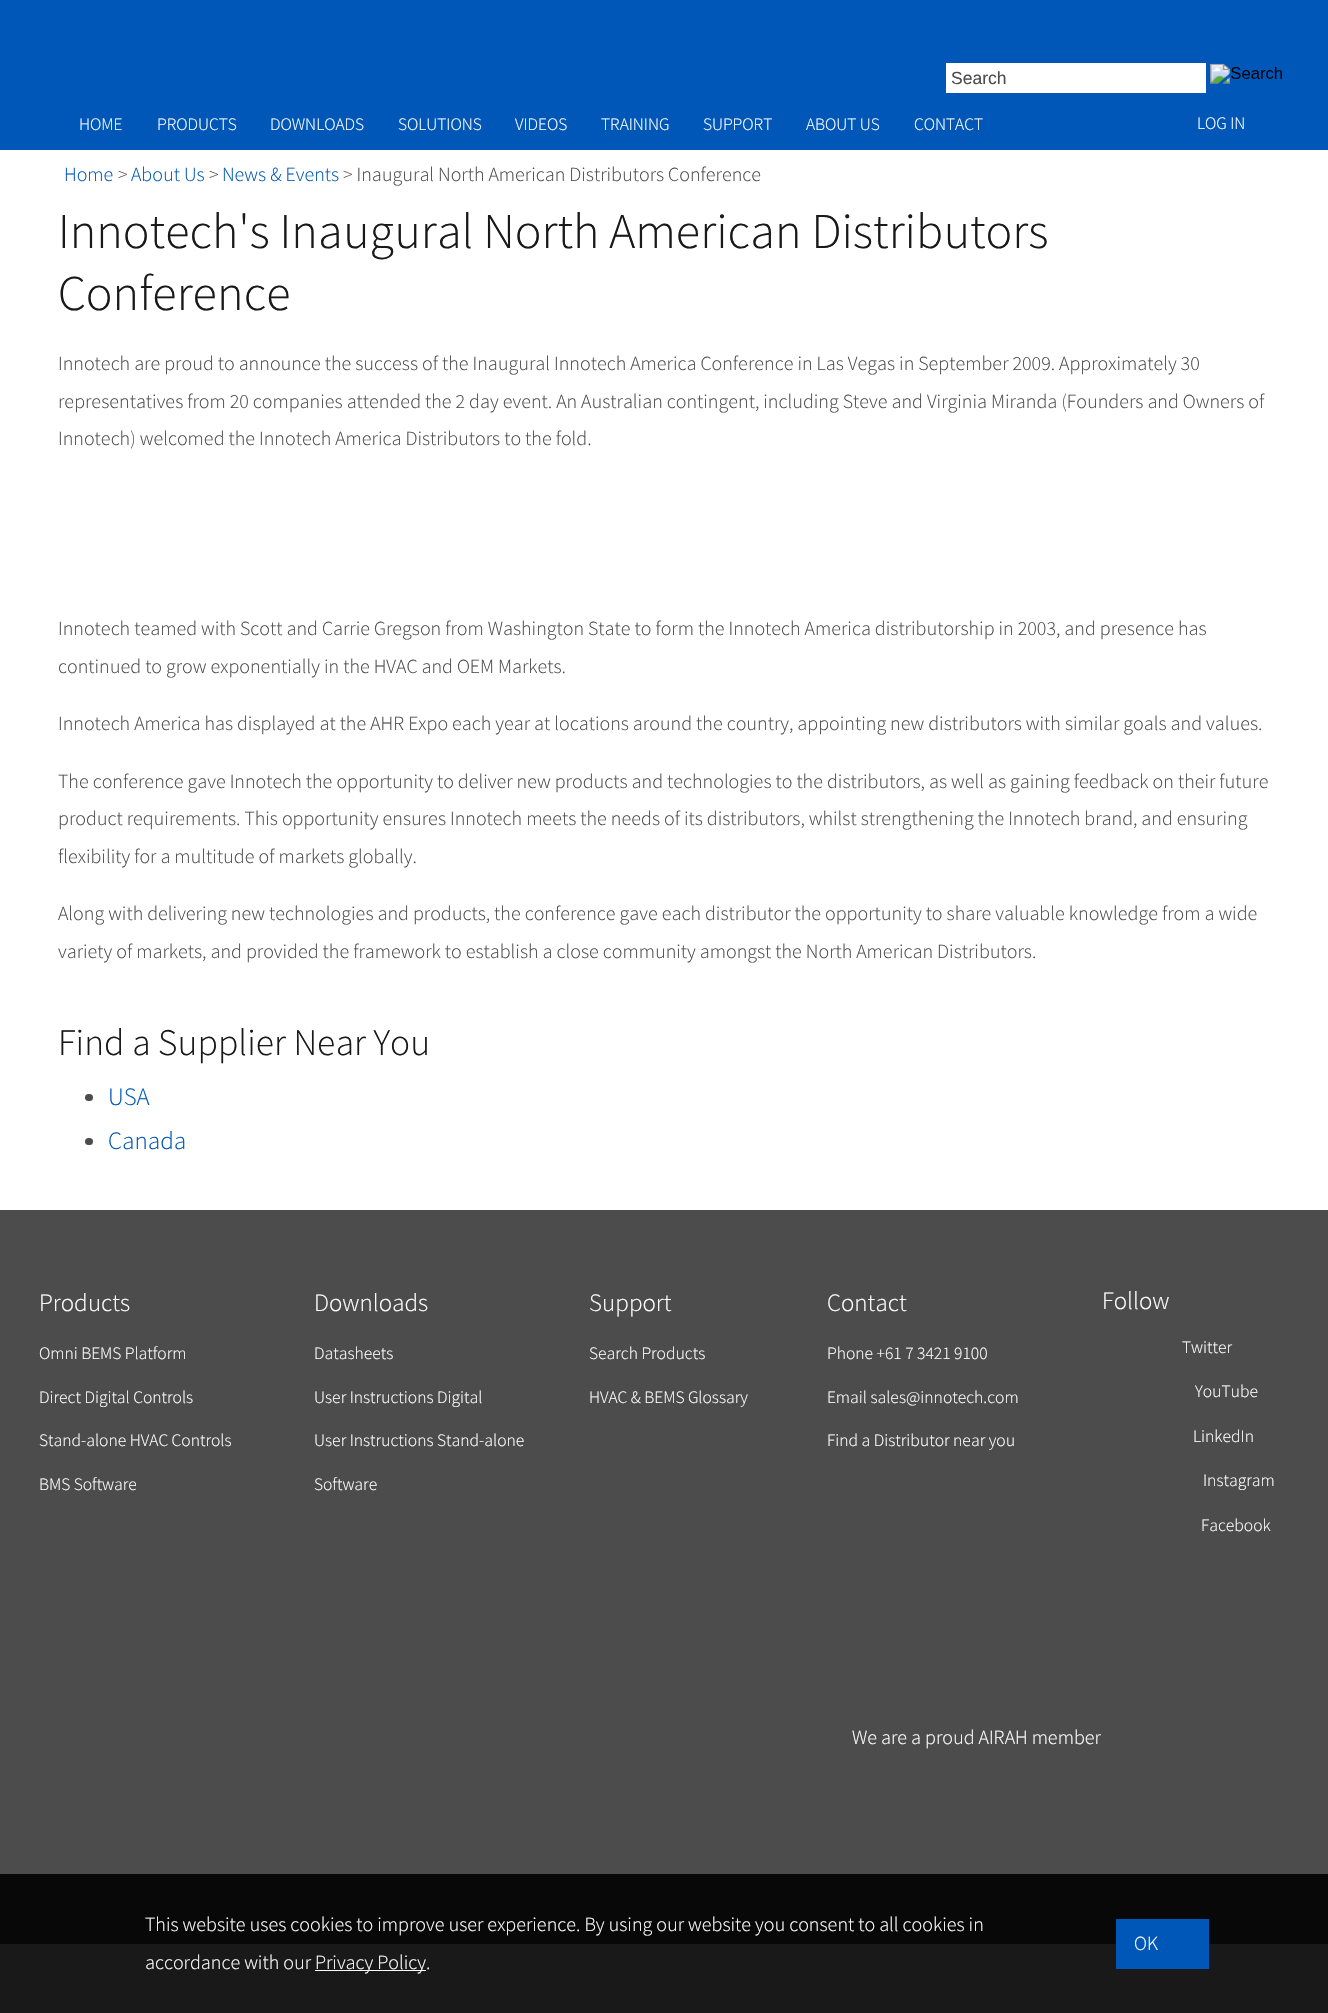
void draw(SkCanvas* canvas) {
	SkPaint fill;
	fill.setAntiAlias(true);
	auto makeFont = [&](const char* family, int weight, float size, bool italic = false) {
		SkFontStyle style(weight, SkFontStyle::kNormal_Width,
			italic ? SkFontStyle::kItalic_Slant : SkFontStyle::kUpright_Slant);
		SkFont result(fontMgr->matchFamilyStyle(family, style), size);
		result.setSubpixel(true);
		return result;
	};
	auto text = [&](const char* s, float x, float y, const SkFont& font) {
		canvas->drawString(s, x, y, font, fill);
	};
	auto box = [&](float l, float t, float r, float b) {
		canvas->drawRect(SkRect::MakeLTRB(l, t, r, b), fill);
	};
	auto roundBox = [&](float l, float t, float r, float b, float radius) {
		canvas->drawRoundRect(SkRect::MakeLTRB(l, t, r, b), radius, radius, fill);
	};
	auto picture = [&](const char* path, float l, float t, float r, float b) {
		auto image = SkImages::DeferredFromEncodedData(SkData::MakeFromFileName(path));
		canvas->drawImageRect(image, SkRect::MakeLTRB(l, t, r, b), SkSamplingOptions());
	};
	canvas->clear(0xFFFFFFFF);
	fill.setColor(0xFF191919);
	box(0, 1944, 1328, 2013);
	fill.setColor(0xFF0057B8);
	box(0, 0, 1328, 150);
	fill.setColor(0xFFFFFFFF);
	box(946, 63, 1206, 93);
	picture("image0.png", 1210, 63, 1282, 84);
	fill.setColor(0xFF4C4C4C);
	roundBox(85, 1094, 93, 1101, 3.5f);
	roundBox(85, 1138, 93, 1145, 3.5f);
	box(0, 1210, 1328, 1874);
	fill.setColor(0xFF080808);
	box(0, 1874, 1328, 1944);
	fill.setColor(0xFFFFFFFF);
	box(315, 1970, 426, 1971);
	fill.setColor(0xFF0057B8);
	box(1116, 1919, 1209, 1969);
	auto font1 = makeFont("Liberation Sans", 400, 17.5f);
	fill.setColor(0xFF4C4C4C);
	text("Search", 951, 84, font1);
	auto font2 = makeFont("Source Sans Pro", 300, 17.5f);
	fill.setColor(0xFFFFFFFF);
	text("HOME", 79, 130, font2);
	text("PRODUCTS", 157, 130, font2);
	text("DOWNLOADS", 270, 130, font2);
	text("SOLUTIONS", 398, 130, font2);
	text("VIDEOS", 515, 130, font2);
	text("TRAINING", 601, 130, font2);
	text("SUPPORT", 703, 130, font2);
	text("ABOUT US", 806, 130, font2);
	text("CONTACT", 914, 130, font2);
	text("LOG IN", 1197, 129, font2);
	auto font3 = makeFont("Source Sans Pro", 300, 20);
	fill.setColor(0xFF0057B8);
	text("Home", 64, 181, font3);
	fill.setColor(0xFF4C4C4C);
	text(">", 118, 181, font3);
	fill.setColor(0xFF0057B8);
	text("About Us", 131, 181, font3);
	fill.setColor(0xFF4C4C4C);
	text(">", 209, 181, font3);
	fill.setColor(0xFF0057B8);
	text("News & Events", 222, 181, font3);
	fill.setColor(0xFF4C4C4C);
	text("> Inaugural North American Distributors Conference", 343, 181, font3);
	auto font4 = makeFont("Source Sans Pro", 300, 50);
	fill.setColor(0xFF191919);
	text("Innotech's Inaugural North American Distributors", 58, 248, font4);
	text("Conference", 58, 310, font4);
	fill.setColor(0xFF4C4C4C);
	text("Innotech are proud to announce the success of the Inaugural Innotech America Conference in Las Vegas in September 2009. Approximately 30", 58, 370, font3);
	text("representatives from 20 companies attended the 2 day event. An Australian contingent, including Steve and Virginia Miranda (Founders and Owners of", 58, 408, font3);
	text("Innotech) welcomed the Innotech America Distributors to the fold.", 58, 445, font3);
	text("Innotech teamed with Scott and Carrie Gregson from Washington State to form the Innotech America distributorship in 2003, and presence has", 58, 635, font3);
	text("continued to grow exponentially in the HVAC and OEM Markets.", 58, 673, font3);
	text("Innotech America has displayed at the AHR Expo each year at locations around the country, appointing new distributors with similar goals and values.", 58, 730, font3);
	text("The conference gave Innotech the opportunity to deliver new products and technologies to the distributors, as well as gaining feedback on their future", 58, 788, font3);
	text("product requirements. This opportunity ensures Innotech meets the needs of its distributors, whilst strengthening the Innotech brand, and ensuring", 58, 825, font3);
	text("flexibility for a multitude of markets globally.", 58, 863, font3);
	text("Along with delivering new technologies and products, the conference gave each distributor the opportunity to share valuable knowledge from a wide", 58, 920, font3);
	text("variety of markets, and provided the framework to establish a close community amongst the North American Distributors.", 58, 958, font3);
	auto font5 = makeFont("Source Sans Pro", 300, 37.5f);
	fill.setColor(0xFF191919);
	text("Find a Supplier Near You", 58, 1055, font5);
	auto font6 = makeFont("Source Sans Pro", 300, 25);
	fill.setColor(0xFF0057B8);
	text("USA", 108, 1105, font6);
	text("Canada", 108, 1149, font6);
	fill.setColor(0xFFFFFFFF);
	text("Products", 39, 1311, font6);
	text("Omni BEMS Platform", 39, 1359, font2);
	text("Direct Digital Controls", 39, 1403, font2);
	text("Stand-alone HVAC Controls", 39, 1446, font2);
	text("BMS Software", 39, 1490, font2);
	text("Downloads", 314, 1311, font6);
	text("Datasheets", 314, 1359, font2);
	text("User Instructions Digital", 314, 1403, font2);
	text("User Instructions Stand-alone", 314, 1446, font2);
	text("Software", 314, 1490, font2);
	text("Support", 589, 1311, font6);
	text("Search Products", 589, 1359, font2);
	text("HVAC & BEMS Glossary", 589, 1403, font2);
	text("Contact", 827, 1311, font6);
	text("Phone +61 7 3421 9100", 827, 1359, font2);
	text("Email sales@innotech.com", 827, 1403, font2);
	text("Find a Distributor near you", 827, 1446, font2);
	text("Follow", 1102, 1309, font6);
	text("Twitter", 1182, 1353, font2);
	text("YouTube", 1195, 1397, font2);
	text("LinkedIn", 1193, 1442, font2);
	text("Instagram", 1203, 1486, font2);
	text("Facebook", 1201, 1531, font2);
	text("We are a proud AIRAH member", 852, 1744, font3);
	text("This website uses cookies to improve user experience. By using our website you consent to all cookies in", 145, 1931, font3);
	text("accordance with our", 145, 1969, font3);
	text("Privacy Policy.", 315, 1969, font3);
	text("OK", 1134, 1950, font3);
}
